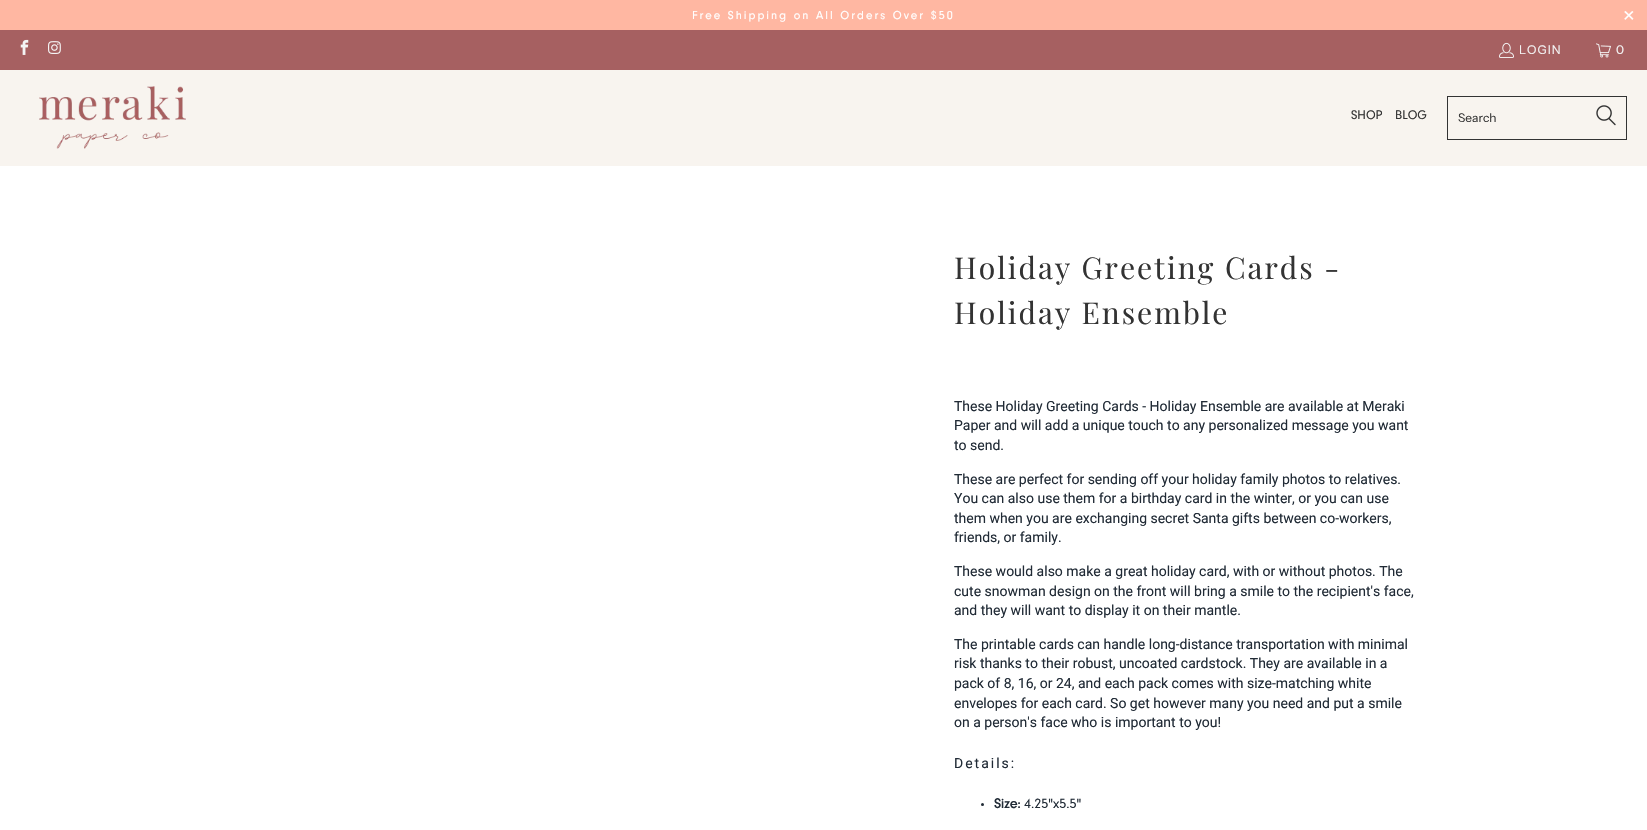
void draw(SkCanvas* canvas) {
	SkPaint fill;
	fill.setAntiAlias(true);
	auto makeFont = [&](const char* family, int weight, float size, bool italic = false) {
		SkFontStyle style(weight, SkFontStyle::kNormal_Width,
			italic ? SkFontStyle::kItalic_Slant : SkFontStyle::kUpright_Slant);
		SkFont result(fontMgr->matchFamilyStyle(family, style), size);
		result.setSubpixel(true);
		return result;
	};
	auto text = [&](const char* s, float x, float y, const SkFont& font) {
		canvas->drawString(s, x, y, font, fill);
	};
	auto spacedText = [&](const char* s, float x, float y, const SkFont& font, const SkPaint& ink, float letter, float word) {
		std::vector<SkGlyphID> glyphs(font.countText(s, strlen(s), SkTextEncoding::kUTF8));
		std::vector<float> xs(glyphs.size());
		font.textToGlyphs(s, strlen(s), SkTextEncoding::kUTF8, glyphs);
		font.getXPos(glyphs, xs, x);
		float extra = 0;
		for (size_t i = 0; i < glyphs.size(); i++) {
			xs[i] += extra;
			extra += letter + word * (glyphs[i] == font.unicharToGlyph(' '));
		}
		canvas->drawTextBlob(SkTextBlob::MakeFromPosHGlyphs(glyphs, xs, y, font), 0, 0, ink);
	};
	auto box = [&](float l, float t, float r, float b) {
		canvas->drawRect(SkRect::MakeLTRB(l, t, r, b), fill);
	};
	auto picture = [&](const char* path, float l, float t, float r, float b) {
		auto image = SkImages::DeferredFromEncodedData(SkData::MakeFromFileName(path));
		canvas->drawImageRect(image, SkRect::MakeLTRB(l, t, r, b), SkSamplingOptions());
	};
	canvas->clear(0xFFFFFFFF);
	fill.setColor(0xFFFFB7A2);
	box(0, 0, 1647, 30);
	fill.setColor(0xFFA66061);
	box(0, 30, 1647, 70);
	picture("image0.png", 20, 39, 29, 55);
	picture("image1.png", 48, 41, 61, 54);
	picture("image2.png", 1499, 42, 1514, 58);
	picture("image3.png", 1596, 43, 1611, 58);
	fill.setColor(0xFFF8F4EF);
	box(0, 70, 1647, 166);
	picture("image4.png", 39, 86, 186, 149);
	fill.setStyle(SkPaint::kStroke_Style);
	fill.setStrokeWidth(1);
	fill.setColor(0xFF333333);
	canvas->drawRect(SkRect::MakeLTRB(1447.5f, 96.5f, 1626.5f, 139.5f), fill);
	picture("image5.png", 1596, 105, 1616, 126);
	fill.setStyle(SkPaint::kFill_Style);
	fill.setColor(0xFF212B36);
	canvas->drawCircle(982.5f, 804.5f, 1.5f, fill);
	auto font1 = makeFont("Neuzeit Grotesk", 400, 12);
	fill.setColor(0xFFFFFFFF);
	spacedText("Free Shipping on All Orders Over $50", 692, 19, font1, fill, 2, 0);
	auto font2 = makeFont("Liberation Sans", 400, 20);
	spacedText("×", 1623, 22, font2, fill, 2, 0);
	auto font3 = makeFont("Instrument Sans", 400, 12);
	fill.setColor(0xFFF4F4F4);
	spacedText("LOGIN", 1519, 54, font3, fill, 1, 0);
	spacedText("0", 1616, 54, font3, fill, 1, 0);
	auto font4 = makeFont("Neuzeit Grotesk", 400, 13);
	fill.setColor(0xFF333333);
	text("SHOP", 1351, 119, font4);
	text("BLOG", 1395, 119, font4);
	text("Search", 1458, 122, font3);
	auto font5 = makeFont("Playfair Display", 400, 30);
	spacedText("Holiday Greeting Cards -", 954, 279, font5, fill, 2, 0);
	spacedText("Holiday Ensemble", 954, 324, font5, fill, 2, 0);
	auto font6 = makeFont("Roboto", 400, 14);
	fill.setColor(0xFF212B36);
	text("These Holiday Greeting Cards - Holiday Ensemble are available at Meraki", 954, 411, font6);
	text("Paper and will add a unique touch to any personalized message you want", 954, 430, font6);
	text("to send.", 954, 450, font6);
	text("These are perfect for sending off your holiday family photos to relatives.", 954, 484, font6);
	text("You can also use them for a birthday card in the winter, or you can use", 954, 503, font6);
	text("them when you are exchanging secret Santa gifts between co-workers,", 954, 523, font6);
	text("friends, or family.", 954, 542, font6);
	text("These would also make a great holiday card, with or without photos. The", 954, 576, font6);
	text("cute snowman design on the front will bring a smile to the recipient's face,", 954, 596, font6);
	text("and they will want to display it on their mantle.", 954, 615, font6);
	text("The printable cards can handle long-distance transportation with minimal", 954, 649, font6);
	text("risk thanks to their robust, uncoated cardstock. They are available in a", 954, 668, font6);
	text("pack of 8, 16, or 24, and each pack comes with size-matching white", 954, 688, font6);
	text("envelopes for each card. So get however many you need and put a smile", 954, 708, font6);
	text("on a person's face who is important to you!", 954, 727, font6);
	spacedText("Details:", 954, 768, font6, fill, 2, 0);
	auto font7 = makeFont("Neuzeit Grotesk", 700, 14);
	text("Size:", 994, 808, font7);
	auto font8 = makeFont("Neuzeit Grotesk", 400, 14);
	text("4.25\"x5.5\"", 1024, 808, font8);
}
